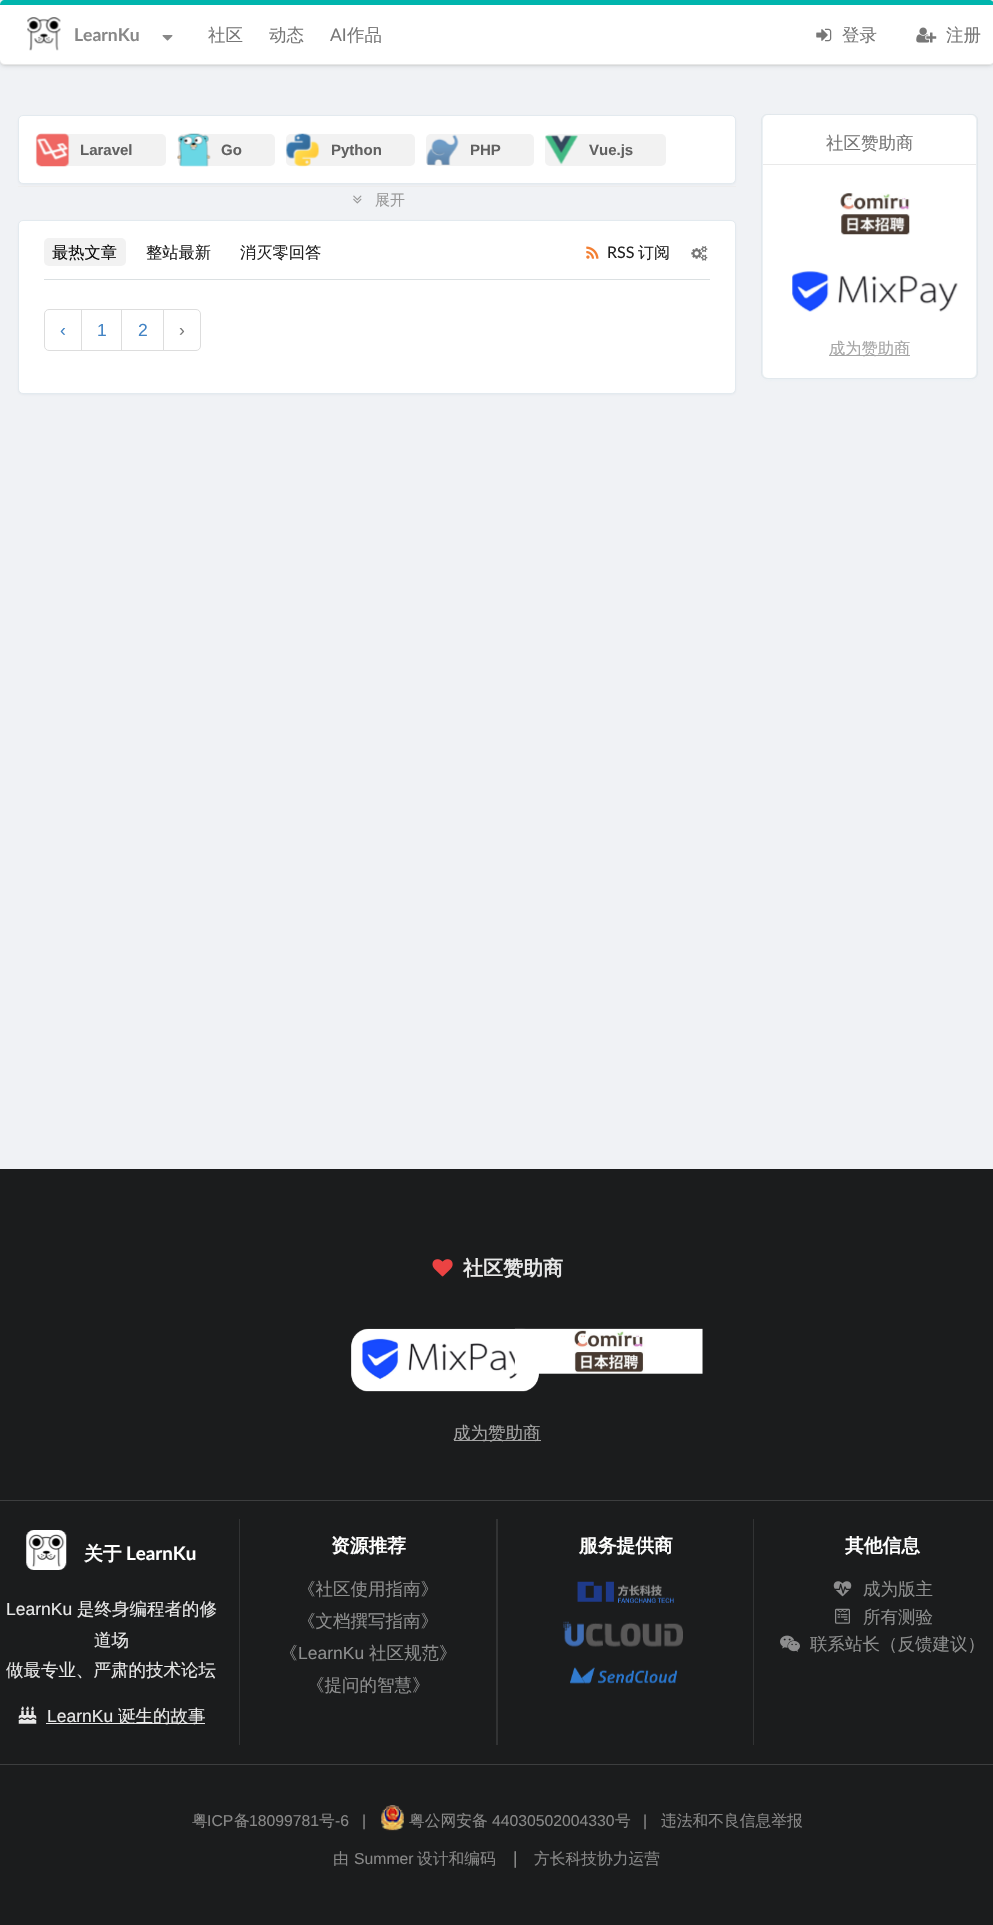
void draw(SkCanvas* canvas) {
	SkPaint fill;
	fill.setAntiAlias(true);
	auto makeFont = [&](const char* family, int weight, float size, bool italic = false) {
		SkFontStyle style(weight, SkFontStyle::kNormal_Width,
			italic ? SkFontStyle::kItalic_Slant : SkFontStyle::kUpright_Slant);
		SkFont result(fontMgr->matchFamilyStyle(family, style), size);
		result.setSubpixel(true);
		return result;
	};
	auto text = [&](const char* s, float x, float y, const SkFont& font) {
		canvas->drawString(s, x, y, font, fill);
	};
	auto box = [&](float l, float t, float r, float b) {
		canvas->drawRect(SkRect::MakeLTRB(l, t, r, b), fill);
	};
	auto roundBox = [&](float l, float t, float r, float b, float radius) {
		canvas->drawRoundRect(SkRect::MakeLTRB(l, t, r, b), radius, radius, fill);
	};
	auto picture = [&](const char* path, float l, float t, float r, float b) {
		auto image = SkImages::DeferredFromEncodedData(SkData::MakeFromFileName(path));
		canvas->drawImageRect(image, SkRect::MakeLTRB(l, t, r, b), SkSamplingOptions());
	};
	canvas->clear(0xFFF0F2F5);
	fill.setColor(0x0F000000);
	fill.setMaskFilter(SkMaskFilter::MakeBlur(kNormal_SkBlurStyle, 1));
	canvas->drawRoundRect(SkRect::MakeLTRB(0, 1, 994, 66), 5, 5, fill);
	fill.setMaskFilter(nullptr);
	fill.setColor(0x1A000000);
	fill.setMaskFilter(SkMaskFilter::MakeBlur(kNormal_SkBlurStyle, 2));
	canvas->drawRoundRect(SkRect::MakeLTRB(0, 1, 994, 66), 5, 5, fill);
	fill.setMaskFilter(nullptr);
	fill.setColor(0xFFFFFFFF);
	roundBox(0, 0, 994, 65, 5);
	fill.setColor(0xFF00B5AD);
	canvas->drawPath(SkPathBuilder().moveTo(5, 0).cubicTo(2, 0, 0, 2, 0, 5).lineTo(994, 5).cubicTo(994, 2, 992, 0, 989, 0).close().detach(), fill);
	fill.setColor(0xFFE7E7E7);
	canvas->drawPath(SkPathBuilder().moveTo(5, 65).lineTo(989, 65).cubicTo(991, 65, 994, 64, 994, 61).cubicTo(993, 63, 991, 64, 989, 64).lineTo(5, 64).cubicTo(2, 64, 0, 62, 0, 60).cubicTo(0, 63, 2, 65, 5, 65).close().detach(), fill);
	picture("image0.png", 27, 17, 61, 51);
	picture("image1.png", 162, 35, 173, 41);
	picture("image2.png", 816, 28, 832, 42);
	picture("image3.png", 916, 27, 937, 43);
	fill.setColor(0xFFEEEEEE);
	box(18, 186, 736, 187);
	fill.setColor(0x1465819C);
	fill.setMaskFilter(SkMaskFilter::MakeBlur(kNormal_SkBlurStyle, 1));
	canvas->drawRoundRect(SkRect::MakeLTRB(18, 116, 736, 185), 5, 5, fill);
	fill.setMaskFilter(nullptr);
	fill.setColor(0xFFFFFFFF);
	canvas->drawRoundRect(SkRect::MakeLTRB(18.5f, 115.5f, 735.5f, 183.5f), 4.5f, 4.5f, fill);
	fill.setStyle(SkPaint::kStroke_Style);
	fill.setStrokeWidth(1);
	fill.setColor(0xFFE3EAEF);
	canvas->drawRoundRect(SkRect::MakeLTRB(18.5f, 115.5f, 735.5f, 183.5f), 4.5f, 4.5f, fill);
	fill.setStyle(SkPaint::kFill_Style);
	fill.setColor(0xFFF2F2F2);
	roundBox(36, 134, 166, 166, 5);
	picture("image4.png", 35, 133, 70, 167);
	roundBox(178, 134, 275, 166, 5);
	picture("image5.png", 177, 133, 211, 167);
	roundBox(286, 134, 415, 166, 5);
	picture("image6.png", 285, 133, 320, 167);
	roundBox(426, 134, 534, 166, 5);
	picture("image7.png", 426, 134, 459, 166);
	roundBox(545, 134, 666, 166, 5);
	picture("image8.png", 545, 135, 578, 165);
	picture("image9.png", 353, 195, 362, 204);
	fill.setColor(0x1465819C);
	fill.setMaskFilter(SkMaskFilter::MakeBlur(kNormal_SkBlurStyle, 1));
	canvas->drawRoundRect(SkRect::MakeLTRB(18, 221, 736, 395), 5, 5, fill);
	fill.setMaskFilter(nullptr);
	fill.setColor(0xFFFFFFFF);
	canvas->drawRoundRect(SkRect::MakeLTRB(18.5f, 220.5f, 735.5f, 393.5f), 4.5f, 4.5f, fill);
	fill.setStyle(SkPaint::kStroke_Style);
	fill.setColor(0xFFE3EAEF);
	canvas->drawRoundRect(SkRect::MakeLTRB(18.5f, 220.5f, 735.5f, 393.5f), 4.5f, 4.5f, fill);
	fill.setStyle(SkPaint::kFill_Style);
	fill.setColor(0xFFF2F2F2);
	roundBox(44, 238, 126, 266, 5);
	picture("image10.png", 586, 246, 599, 259);
	picture("image11.png", 691, 246, 708, 261);
	fill.setColor(0xFFDBE0E2);
	box(44, 279, 710, 280);
	fill.setStyle(SkPaint::kStroke_Style);
	fill.setColor(0xFFDDDDDD);
	canvas->drawPath(SkPathBuilder().moveTo(49, 309.5f).lineTo(82.5f, 309.5f).lineTo(82.5f, 350.5f).lineTo(49, 350.5f).cubicTo(46.5f, 350.5f, 44.5f, 348.5f, 44.5f, 346).lineTo(44.5f, 314).cubicTo(44.5f, 311.5f, 46.5f, 309.5f, 49, 309.5f).close().detach(), fill);
	fill.setStyle(SkPaint::kFill_Style);
	fill.setColor(0xFFFFFFFF);
	box(82, 310, 83, 350);
	fill.setStyle(SkPaint::kStroke_Style);
	fill.setColor(0xFFDDDDDD);
	canvas->drawRect(SkRect::MakeLTRB(81.5f, 309.5f, 122.5f, 350.5f), fill);
	fill.setStyle(SkPaint::kFill_Style);
	fill.setColor(0xFFFFFFFF);
	box(122, 310, 123, 350);
	fill.setStyle(SkPaint::kStroke_Style);
	fill.setColor(0xFFDDDDDD);
	canvas->drawRect(SkRect::MakeLTRB(121.5f, 309.5f, 163.5f, 350.5f), fill);
	fill.setStyle(SkPaint::kFill_Style);
	fill.setColor(0xFFFFFFFF);
	canvas->drawPath(SkPathBuilder().moveTo(163.5f, 309.5f).lineTo(196, 309.5f).cubicTo(198.5f, 309.5f, 200.5f, 311.5f, 200.5f, 314).lineTo(200.5f, 346).cubicTo(200.5f, 348.5f, 198.5f, 350.5f, 196, 350.5f).lineTo(163.5f, 350.5f).close().detach(), fill);
	fill.setStyle(SkPaint::kStroke_Style);
	fill.setColor(0xFFDDDDDD);
	canvas->drawPath(SkPathBuilder().moveTo(163.5f, 309.5f).lineTo(196, 309.5f).cubicTo(198.5f, 309.5f, 200.5f, 311.5f, 200.5f, 314).lineTo(200.5f, 346).cubicTo(200.5f, 348.5f, 198.5f, 350.5f, 196, 350.5f).lineTo(163.5f, 350.5f).close().detach(), fill);
	fill.setColor(0xFFE1E7EA);
	canvas->drawRoundRect(SkRect::MakeLTRB(761.5f, 114.5f, 977.5f, 378.5f), 5.5f, 5.5f, fill);
	fill.setStyle(SkPaint::kFill_Style);
	fill.setColor(0xE0E3EAEF);
	fill.setMaskFilter(SkMaskFilter::MakeBlur(kNormal_SkBlurStyle, 2));
	canvas->drawRoundRect(SkRect::MakeLTRB(763, 116, 976, 379), 5, 5, fill);
	fill.setMaskFilter(nullptr);
	fill.setColor(0xFFFFFFFF);
	roundBox(763, 115, 976, 378, 5);
	fill.setColor(0xFFE9E9E9);
	box(763, 164, 976, 165);
	picture("image12.png", 840, 193, 910, 235);
	picture("image13.png", 792, 271, 958, 312);
	fill.setColor(0xFFA5A5A5);
	box(829, 355, 910, 356);
	fill.setColor(0xFF1B1C1D);
	box(0, 1169, 993, 1925);
	picture("image14.png", 432, 1259, 453, 1277);
	picture("image15.png", 351, 1328, 539, 1392);
	picture("image16.png", 514, 1328, 703, 1374);
	fill.setColor(0xFFA5A5A5);
	box(454, 1440, 541, 1441);
	fill.setColor(0xFF3D3E3F);
	box(0, 1500, 993, 1501);
	picture("image17.png", 26, 1530, 67, 1570);
	picture("image18.png", 18, 1706, 37, 1724);
	fill.setColor(0xFFE8E8E8);
	box(46, 1723, 205, 1724);
	fill.setColor(0xFF323334);
	box(239, 1519, 240, 1745);
	box(496, 1519, 498, 1745);
	picture("image19.png", 577, 1581, 674, 1603);
	picture("image20.png", 563, 1621, 683, 1647);
	picture("image21.png", 570, 1667, 678, 1684);
	box(753, 1519, 754, 1745);
	picture("image22.png", 833, 1581, 852, 1597);
	picture("image23.png", 835, 1608, 850, 1624);
	picture("image24.png", 780, 1635, 800, 1652);
	fill.setColor(0xFF3D3E3F);
	box(0, 1764, 993, 1765);
	picture("image25.png", 381, 1805, 404, 1831);
	auto font1 = makeFont("Lato", 700, 17.5f);
	fill.setColor(0xFF888888);
	text("LearnKu", 74, 41, font1);
	auto font2 = makeFont("WenQuanYi Zen Hei", 500, 17.5f);
	fill.setColor(0xFF777777);
	text("社区", 208, 41, font2);
	text("动态", 269, 41, font2);
	auto font3 = makeFont("Lato", 400, 17.5f);
	text("AI", 330, 41, font3);
	text("作品", 347, 41, font2);
	text("登录", 842, 41, font2);
	text("注册", 946, 41, font2);
	auto font4 = makeFont("Liberation Sans", 700, 15);
	fill.setColor(0xFF616161);
	text("Laravel", 80, 155, font4);
	text("Go", 221, 155, font4);
	text("Python", 331, 155, font4);
	text("PHP", 470, 155, font4);
	text("Vue.js", 589, 155, font4);
	auto font5 = makeFont("WenQuanYi Zen Hei", 500, 15);
	fill.setColor(0xFF989898);
	text("展开", 375, 205, font5);
	auto font6 = makeFont("WenQuanYi Zen Hei", 500, 16.25f);
	fill.setColor(0xFF0C0C0C);
	text("最热文章", 52, 258, font6);
	fill.setColor(0xFF212121);
	text("整站最新", 146, 258, font6);
	text("消灭零回答", 240, 258, font6);
	auto font7 = makeFont("Lato", 400, 16);
	text("RSS", 607, 258, font7);
	auto font8 = makeFont("WenQuanYi Zen Hei", 500, 16);
	text("订阅", 638, 258, font8);
	auto font9 = makeFont("Liberation Sans", 400, 17.5f);
	fill.setColor(0xFF4183C4);
	text("‹", 60, 336, font9);
	text("1", 97, 336, font9);
	text("2", 138, 336, font9);
	fill.setColor(0xFF777777);
	text("›", 179, 336, font9);
	text("社区赞助商", 826, 149, font2);
	fill.setColor(0xFFA5A5A5);
	text("成为赞助商", 829, 354, font6);
	auto font10 = makeFont("WenQuanYi Zen Hei", 700, 20);
	fill.setColor(0xFFE8E8E8);
	text("社区赞助商", 463, 1275, font10);
	fill.setColor(0xFFA5A5A5);
	text("成为赞助商", 453, 1439, font2);
	auto font11 = makeFont("WenQuanYi Zen Hei", 700, 18.75f);
	fill.setColor(0xFFFFFFFF);
	text("关于", 84, 1560, font11);
	auto font12 = makeFont("Lato", 700, 18.75f);
	text("LearnKu", 126, 1560, font12);
	fill.setColor(0xFFE8E8E8);
	text("LearnKu", 6, 1615, font9);
	text("是终身编程者的修", 77, 1615, font2);
	text("道场", 94, 1646, font2);
	text("做最专业、严肃的技术论坛", 6, 1676, font2);
	text("LearnKu", 47, 1722, font9);
	text("诞生的故事", 118, 1722, font2);
	fill.setColor(0xFFFFFFFF);
	text("资源推荐", 331, 1552, font11);
	fill.setColor(0xFF8D8E8E);
	text("《社区使用指南》", 298, 1595, font2);
	text("《文档撰写指南》", 298, 1627, font2);
	text("《", 280, 1659, font2);
	text("LearnKu", 298, 1659, font9);
	text("社区规范》", 369, 1659, font2);
	text("《提问的智慧》", 307, 1691, font2);
	fill.setColor(0xFFFFFFFF);
	text("服务提供商", 579, 1552, font11);
	text("其他信息", 845, 1552, font11);
	fill.setColor(0xFF8D8E8E);
	text("成为版主", 863, 1595, font2);
	text("所有测验", 863, 1623, font2);
	text("联系站长（反馈建议）", 810, 1650, font2);
	auto font13 = makeFont("WenQuanYi Zen Hei", 500, 15.75f);
	fill.setColor(0xFF888888);
	text("粤", 192, 1826, font13);
	auto font14 = makeFont("Liberation Sans", 400, 15.75f);
	text("ICP", 207, 1826, font14);
	text("备", 234, 1826, font13);
	text("18099781", 249, 1826, font14);
	text("号", 319, 1826, font13);
	text("-6", 335, 1826, font14);
	text("|", 362, 1826, font14);
	text("粤公网安备", 409, 1826, font13);
	text("44030502004330", 492, 1826, font14);
	text("号", 615, 1826, font13);
	text("|", 643, 1826, font14);
	text("违法和不良信息举报", 661, 1826, font13);
	text("由", 333, 1864, font13);
	text("Summer", 354, 1864, font14);
	text("设计和编码", 417, 1864, font13);
	text("|", 513, 1864, font9);
	text("方长科技协力运营", 534, 1864, font13);
}
